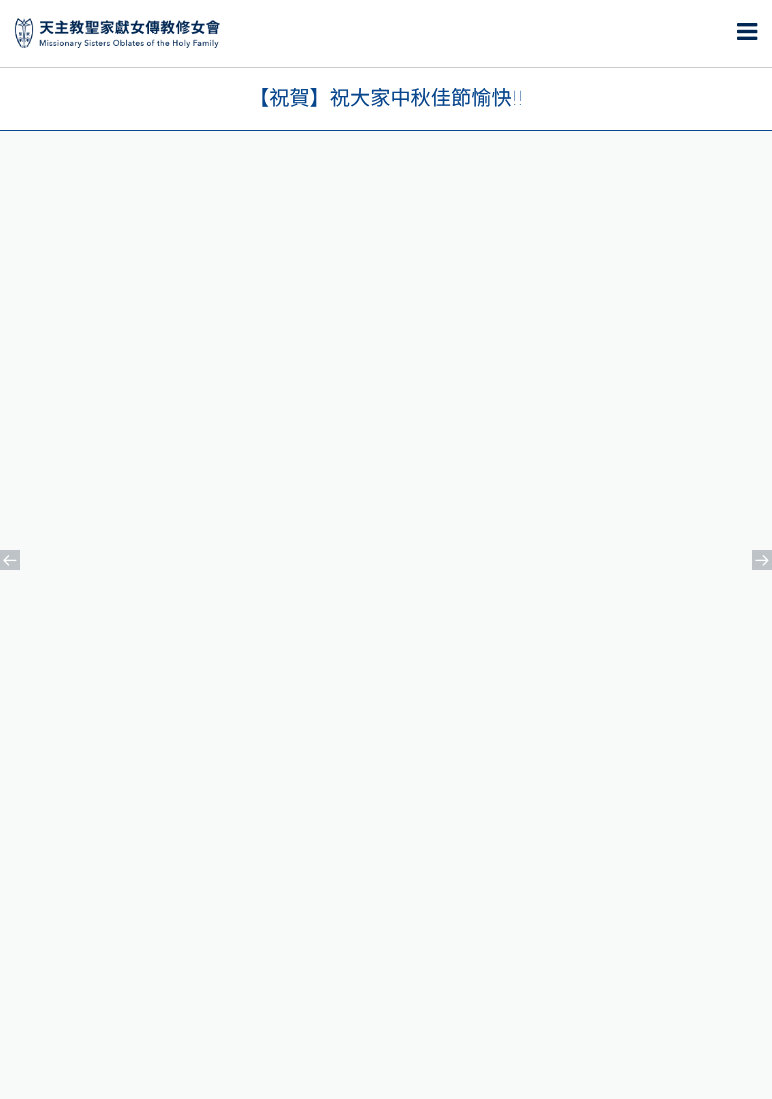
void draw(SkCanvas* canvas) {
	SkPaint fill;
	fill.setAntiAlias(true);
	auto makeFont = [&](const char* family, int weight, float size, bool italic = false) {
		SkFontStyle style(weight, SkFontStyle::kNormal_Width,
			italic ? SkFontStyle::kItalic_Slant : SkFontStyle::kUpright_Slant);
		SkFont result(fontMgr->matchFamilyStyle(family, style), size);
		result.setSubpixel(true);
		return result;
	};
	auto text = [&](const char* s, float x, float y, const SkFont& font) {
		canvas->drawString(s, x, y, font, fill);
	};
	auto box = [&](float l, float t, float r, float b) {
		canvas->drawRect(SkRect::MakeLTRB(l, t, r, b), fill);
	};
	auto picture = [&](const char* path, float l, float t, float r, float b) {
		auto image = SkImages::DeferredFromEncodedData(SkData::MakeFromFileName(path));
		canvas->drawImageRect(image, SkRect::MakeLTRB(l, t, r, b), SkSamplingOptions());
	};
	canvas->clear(0xFFFFFFFF);
	fill.setColor(0xFFCCCCCC);
	box(0, 67, 772, 68);
	picture("image0.png", 14, 18, 220, 48);
	picture("image1.png", 737, 23, 758, 40);
	fill.setColor(0xFFF8FAFA);
	box(0, 131, 772, 1099);
	fill.setColor(0xFF07468D);
	box(0, 130, 772, 131);
	fill.setColor(0xFFBDC3C7);
	box(0, 550, 20, 570);
	picture("image2.png", 3, 555, 17, 566);
	box(752, 550, 772, 570);
	picture("image3.png", 755, 555, 769, 566);
	auto font1 = makeFont("Noto Sans CJK TC", 400, 20.2f);
	fill.setColor(0xFF07468D);
	text("【祝賀】祝大家中秋佳節愉快", 249, 105, font1);
	auto font2 = makeFont("Avenir Next", 200, 20.2f);
	text("!!", 512, 105, font2);
}
